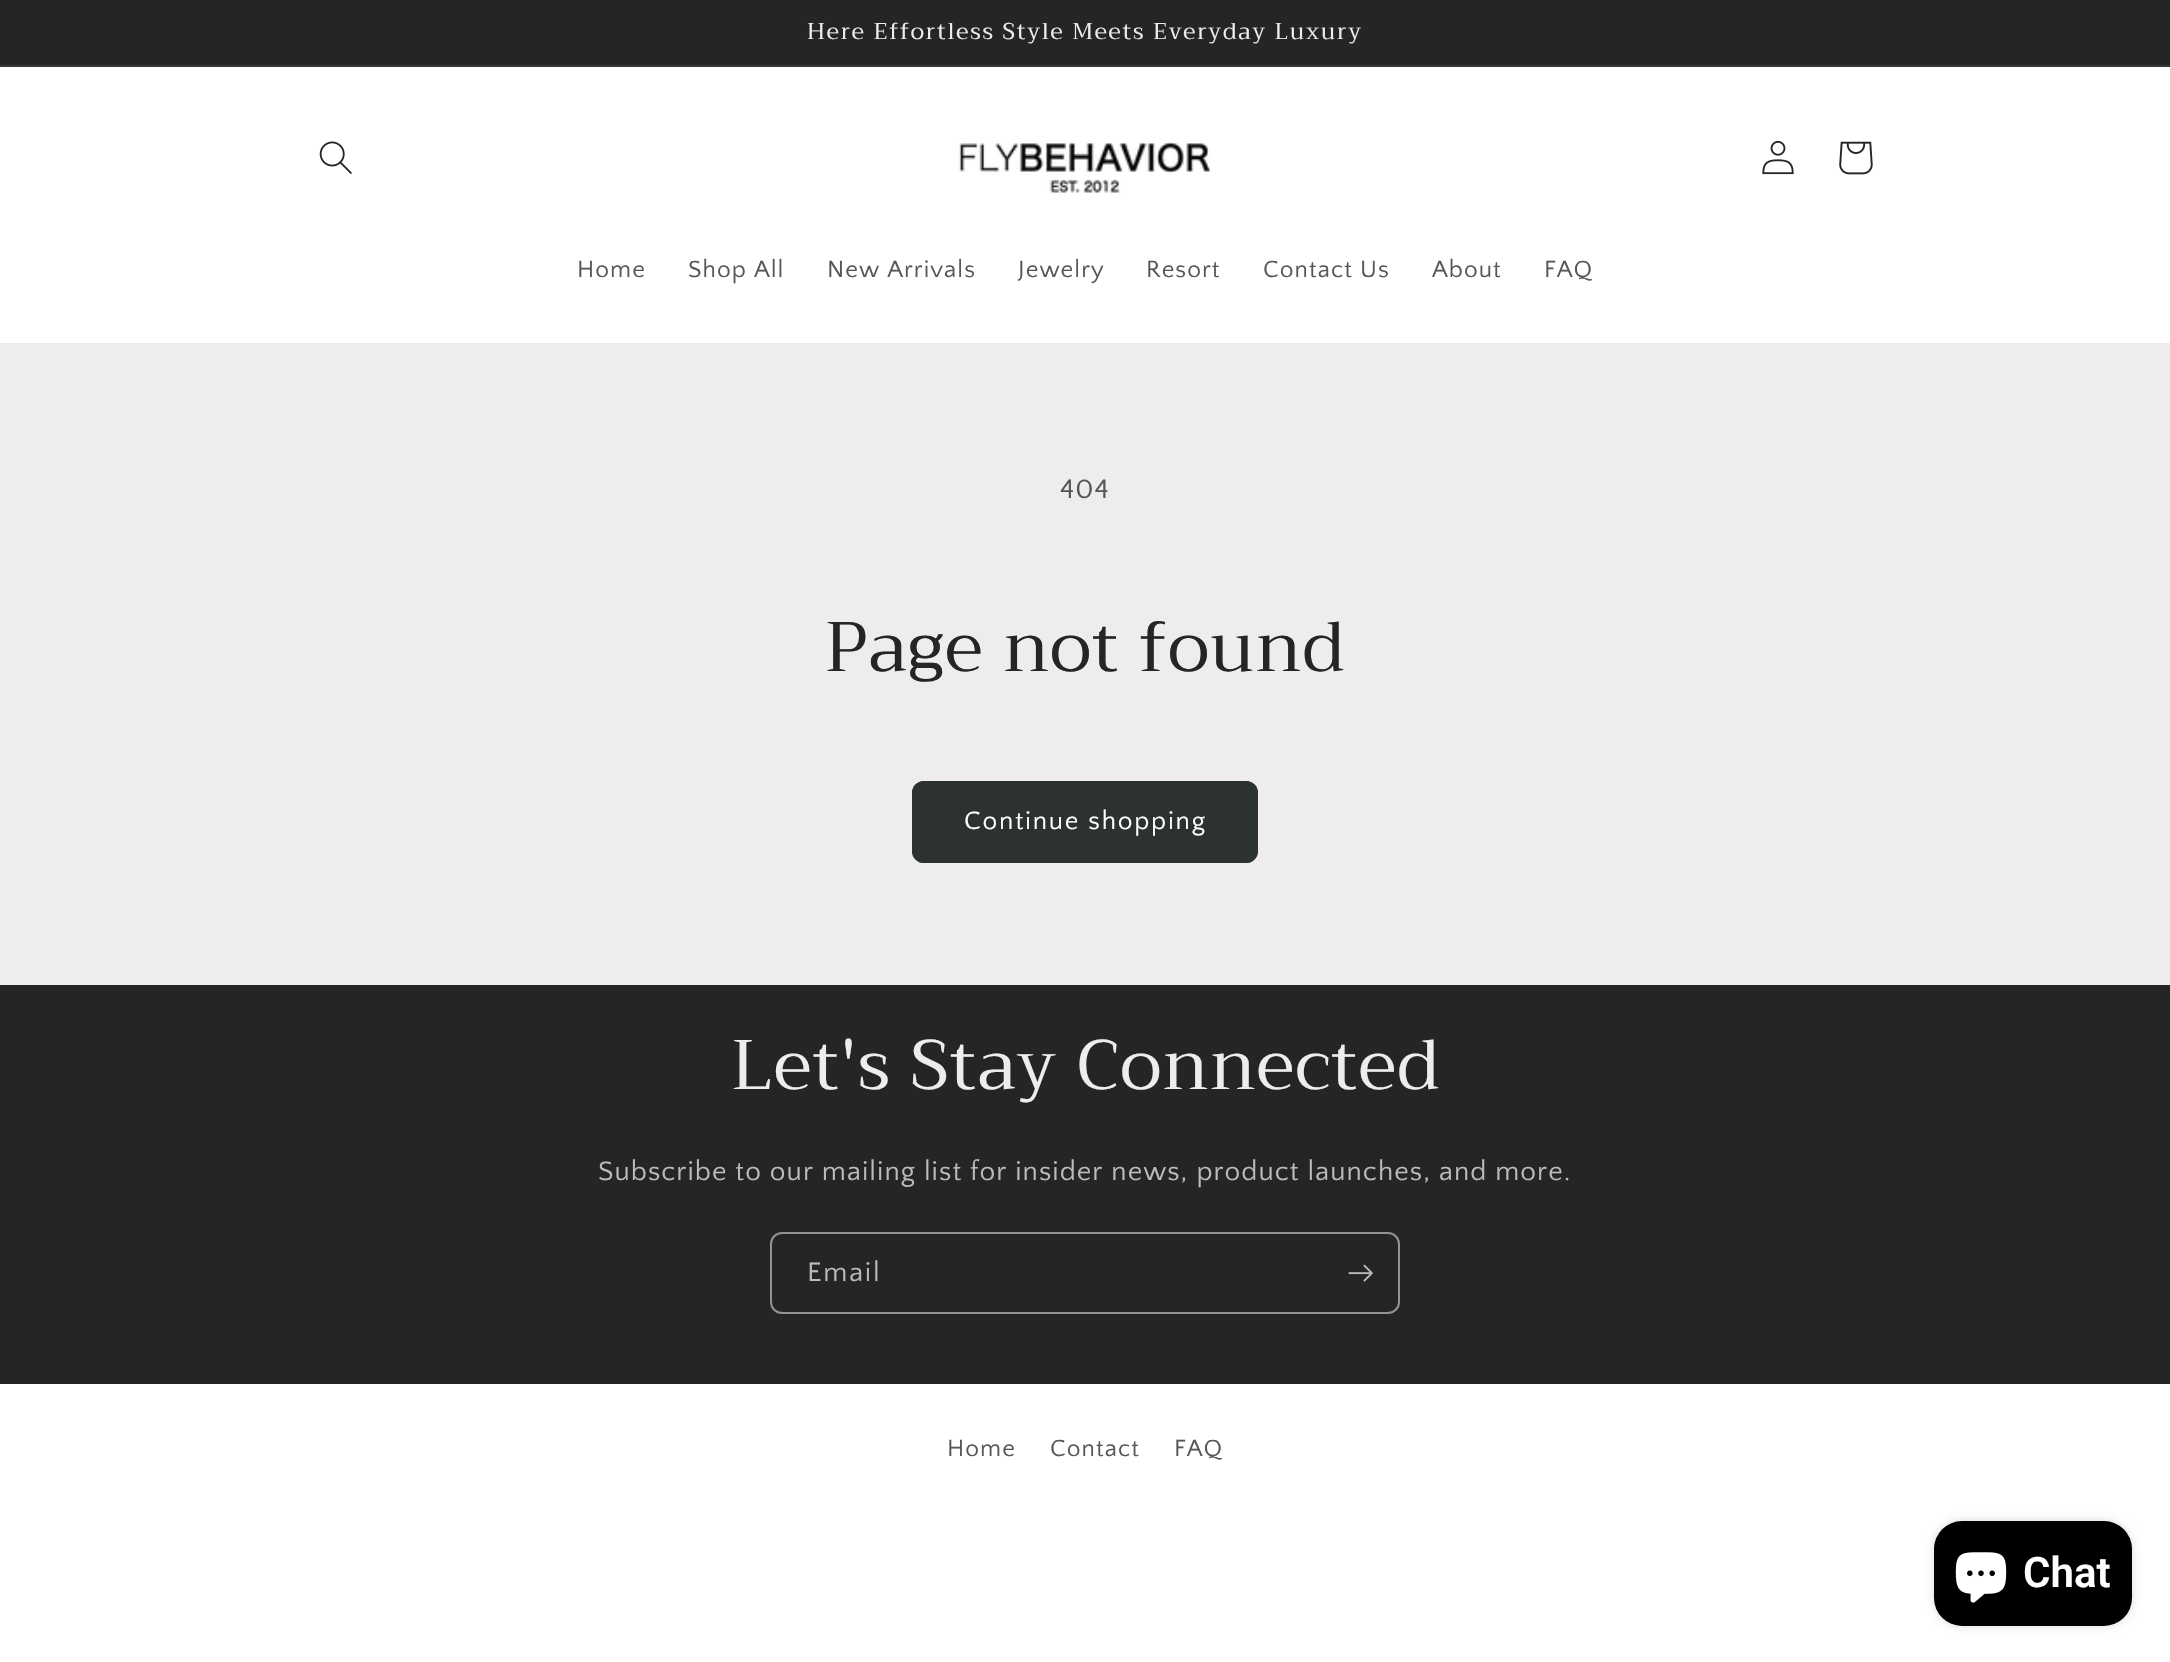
void draw(SkCanvas* canvas) {
	SkPaint fill;
	fill.setAntiAlias(true);
	auto makeFont = [&](const char* family, int weight, float size, bool italic = false) {
		SkFontStyle style(weight, SkFontStyle::kNormal_Width,
			italic ? SkFontStyle::kItalic_Slant : SkFontStyle::kUpright_Slant);
		SkFont result(fontMgr->matchFamilyStyle(family, style), size);
		result.setSubpixel(true);
		return result;
	};
	auto text = [&](const char* s, float x, float y, const SkFont& font) {
		canvas->drawString(s, x, y, font, fill);
	};
	auto spacedText = [&](const char* s, float x, float y, const SkFont& font, const SkPaint& ink, float letter, float word) {
		std::vector<SkGlyphID> glyphs(font.countText(s, strlen(s), SkTextEncoding::kUTF8));
		std::vector<float> xs(glyphs.size());
		font.textToGlyphs(s, strlen(s), SkTextEncoding::kUTF8, glyphs);
		font.getXPos(glyphs, xs, x);
		float extra = 0;
		for (size_t i = 0; i < glyphs.size(); i++) {
			xs[i] += extra;
			extra += letter + word * (glyphs[i] == font.unicharToGlyph(' '));
		}
		canvas->drawTextBlob(SkTextBlob::MakeFromPosHGlyphs(glyphs, xs, y, font), 0, 0, ink);
	};
	auto box = [&](float l, float t, float r, float b) {
		canvas->drawRect(SkRect::MakeLTRB(l, t, r, b), fill);
	};
	auto roundBox = [&](float l, float t, float r, float b, float radius) {
		canvas->drawRoundRect(SkRect::MakeLTRB(l, t, r, b), radius, radius, fill);
	};
	auto picture = [&](const char* path, float l, float t, float r, float b) {
		auto image = SkImages::DeferredFromEncodedData(SkData::MakeFromFileName(path));
		canvas->drawImageRect(image, SkRect::MakeLTRB(l, t, r, b), SkSamplingOptions());
	};
	canvas->clear(0xFFEFECEC);
	fill.setColor(0xFF252525);
	box(0, 0, 2170, 65);
	fill.setColor(0xFF353535);
	box(0, 65, 2170, 67);
	fill.setColor(0xFFFFFFFF);
	box(0, 67, 2170, 343);
	picture("image0.png", 319, 141, 352, 174);
	picture("image1.png", 958, 141, 1211, 193);
	picture("image2.png", 1762, 140, 1794, 175);
	picture("image3.png", 1839, 141, 1873, 175);
	fill.setColor(0xFF2C332F);
	roundBox(912, 781, 1258, 863, 12);
	fill.setStyle(SkPaint::kStroke_Style);
	fill.setStrokeWidth(2);
	canvas->drawRoundRect(SkRect::MakeLTRB(913, 782, 1257, 862), 11, 11, fill);
	fill.setStyle(SkPaint::kFill_Style);
	fill.setColor(0xFF252525);
	box(0, 985, 2170, 1384);
	fill.setStyle(SkPaint::kStroke_Style);
	fill.setColor(0xFF949292);
	canvas->drawRoundRect(SkRect::MakeLTRB(771, 1233, 1399, 1313), 11, 11, fill);
	picture("image4.png", 1348, 1264, 1373, 1282);
	fill.setStyle(SkPaint::kFill_Style);
	fill.setColor(0xFFFFFFFF);
	box(0, 1384, 2170, 1662);
	fill.setColor(0x26000000);
	fill.setMaskFilter(SkMaskFilter::MakeBlur(kNormal_SkBlurStyle, 4.5f));
	canvas->drawRoundRect(SkRect::MakeLTRB(1934, 1521, 2132, 1626), 28, 28, fill);
	fill.setMaskFilter(nullptr);
	fill.setColor(0xFF000000);
	roundBox(1934, 1521, 2132, 1626, 28);
	picture("image5.png", 1955, 1552, 2007, 1603);
	auto font1 = makeFont("Trirong", 400, 22.75f);
	fill.setColor(0xFFEFECEC);
	spacedText("Here Effortless Style Meets Everyday Luxury", 807, 39, font1, fill, 1.75f, 0);
	auto font2 = makeFont("Quattrocento Sans", 400, 24.5f);
	fill.setColor(0xFF585757);
	spacedText("Home", 577, 277, font2, fill, 1.05f, 0);
	spacedText("Shop All", 688, 277, font2, fill, 1.05f, 0);
	spacedText("New Arrivals", 827, 277, font2, fill, 1.05f, 0);
	spacedText("Jewelry", 1018, 277, font2, fill, 1.05f, 0);
	spacedText("Resort", 1146, 277, font2, fill, 1.05f, 0);
	spacedText("Contact Us", 1263, 277, font2, fill, 1.05f, 0);
	spacedText("About", 1432, 277, font2, fill, 1.05f, 0);
	spacedText("FAQ", 1544, 277, font2, fill, 1.05f, 0);
	auto font3 = makeFont("Quattrocento Sans", 400, 28);
	spacedText("404", 1060, 498, font3, fill, 1.05f, 0);
	auto font4 = makeFont("Trirong", 400, 70);
	fill.setColor(0xFF252525);
	spacedText("Page not found", 825, 671, font4, fill, 1.05f, 0);
	auto font5 = makeFont("Quattrocento Sans", 400, 26.25f);
	fill.setColor(0xFFFFFFFF);
	spacedText("Continue shopping", 964, 829, font5, fill, 1.75f, 0);
	fill.setColor(0xFFEFECEC);
	spacedText("Let's Stay Connected", 731, 1089, font4, fill, 1.05f, 0);
	fill.setColor(0xFFBDBABA);
	spacedText("Subscribe to our mailing list for insider news, product launches, and more.", 598, 1180, font3, fill, 1.05f, 0);
	spacedText("Email", 807, 1281, font3, fill, 1.75f, 0);
	fill.setColor(0xFF585757);
	spacedText("Home", 947, 1456, font2, fill, 1.05f, 0);
	spacedText("Contact", 1050, 1456, font2, fill, 1.05f, 0);
	spacedText("FAQ", 1174, 1456, font2, fill, 1.05f, 0);
	auto font6 = makeFont("Roboto", 600, 42);
	fill.setColor(0xFFFFFFFF);
	text("Chat", 2023, 1587, font6);
}
